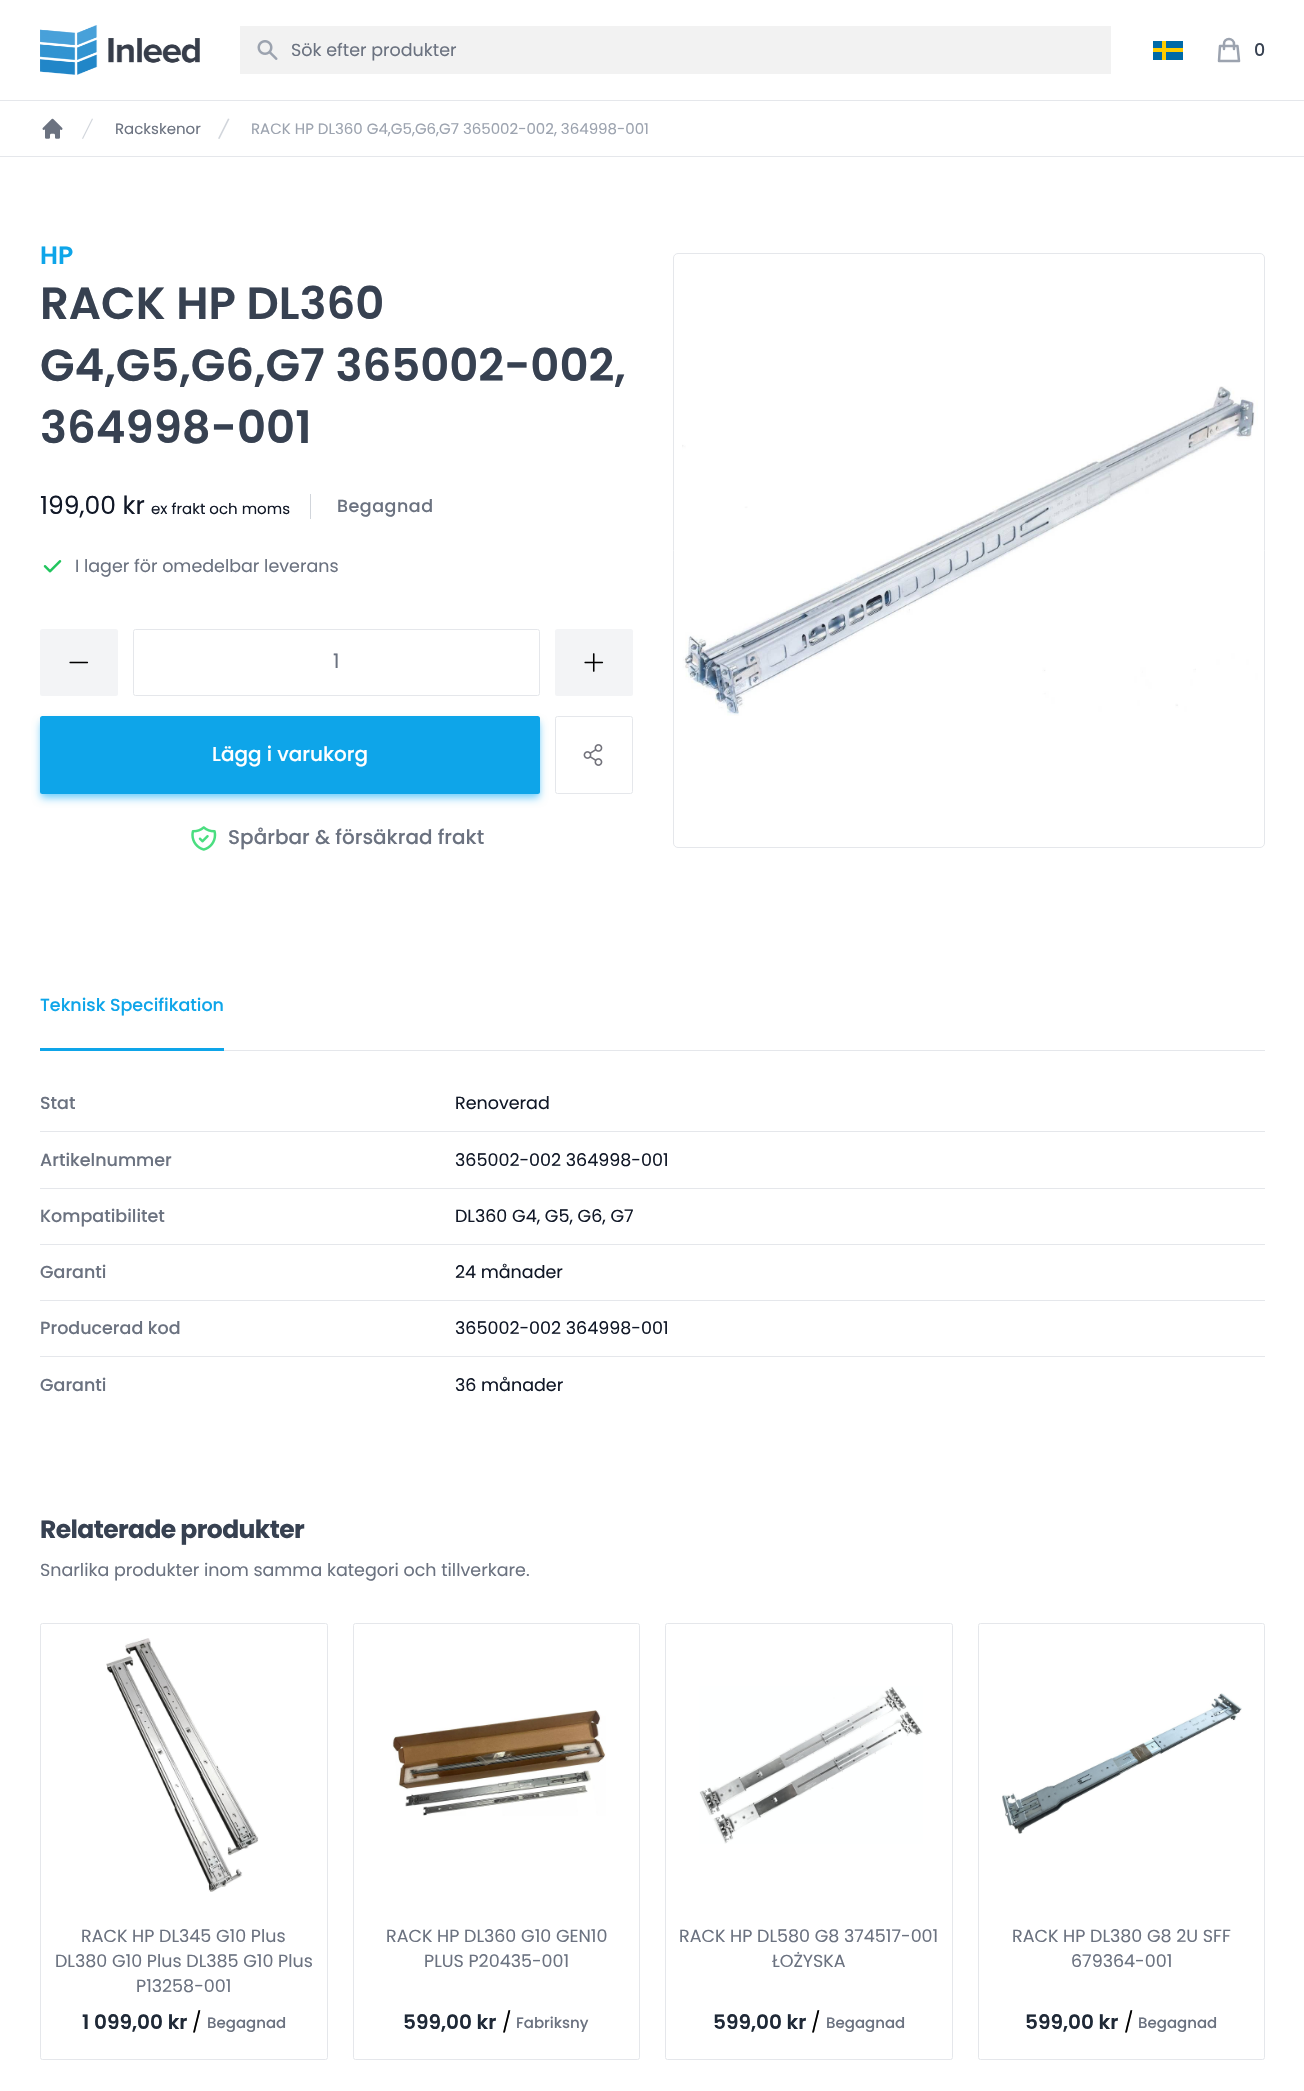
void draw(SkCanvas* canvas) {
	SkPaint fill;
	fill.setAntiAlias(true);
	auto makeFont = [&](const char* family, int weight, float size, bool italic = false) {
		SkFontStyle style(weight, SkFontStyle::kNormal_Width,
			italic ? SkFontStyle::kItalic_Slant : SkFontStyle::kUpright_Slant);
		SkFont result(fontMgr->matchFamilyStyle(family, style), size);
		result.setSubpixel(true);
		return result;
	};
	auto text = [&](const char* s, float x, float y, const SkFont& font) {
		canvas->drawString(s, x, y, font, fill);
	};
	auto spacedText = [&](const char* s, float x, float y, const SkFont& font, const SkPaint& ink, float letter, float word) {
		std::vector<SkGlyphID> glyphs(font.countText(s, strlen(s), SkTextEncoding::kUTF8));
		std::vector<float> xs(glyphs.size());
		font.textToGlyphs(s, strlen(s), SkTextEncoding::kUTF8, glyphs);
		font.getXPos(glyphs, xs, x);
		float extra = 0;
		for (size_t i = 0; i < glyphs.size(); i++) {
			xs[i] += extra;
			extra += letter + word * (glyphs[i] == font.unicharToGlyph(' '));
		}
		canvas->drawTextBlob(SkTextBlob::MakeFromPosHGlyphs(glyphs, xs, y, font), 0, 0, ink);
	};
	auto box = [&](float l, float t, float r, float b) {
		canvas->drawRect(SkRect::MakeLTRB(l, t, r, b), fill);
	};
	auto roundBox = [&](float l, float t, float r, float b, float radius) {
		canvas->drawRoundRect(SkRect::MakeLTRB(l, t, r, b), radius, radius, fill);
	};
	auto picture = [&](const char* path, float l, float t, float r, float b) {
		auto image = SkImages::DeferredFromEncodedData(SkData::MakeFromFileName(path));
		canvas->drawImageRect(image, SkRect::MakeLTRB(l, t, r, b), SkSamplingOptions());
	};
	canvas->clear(0xFFFFFFFF);
	fill.setColor(0xFFE5E7EB);
	box(0, 100, 1304, 101);
	picture("image0.png", 40, 25, 200, 75);
	fill.setColor(0x0D000000);
	box(240, 26, 1111, 74);
	picture("image1.png", 257, 40, 278, 60);
	fill.setColor(0xFF006AA7);
	box(1153, 41, 1183, 60);
	fill.setColor(0xFFFECC00);
	box(1162, 41, 1166, 60);
	box(1153, 48, 1183, 52);
	fill.setStyle(SkPaint::kStroke_Style);
	fill.setStrokeWidth(2.5f);
	fill.setStrokeCap(SkPaint::kRound_Cap);
	fill.setStrokeJoin(SkPaint::kRound_Join);
	fill.setColor(0xFF9CA3AF);
	canvas->drawPath(SkPathBuilder().moveTo(1234, 49).lineTo(1234, 44).cubicTo(1234, 41, 1231.5f, 39, 1229, 39).cubicTo(1226, 39, 1224, 41, 1224, 44).lineTo(1224, 49).moveTo(1220, 46).lineTo(1237.5f, 46).lineTo(1239, 61).lineTo(1219, 61).close().detach(), fill);
	fill.setStyle(SkPaint::kFill_Style);
	fill.setColor(0xFFE5E7EB);
	box(0, 156, 1304, 157);
	picture("image2.png", 42, 118, 63, 139);
	fill.setColor(0xFFD1D5DB);
	canvas->drawPath(SkPathBuilder().moveTo(82, 138.5f).lineTo(92, 118.5f).lineTo(93, 119).lineTo(83, 139).close().detach(), fill);
	canvas->drawPath(SkPathBuilder().moveTo(218, 138.5f).lineTo(228, 118.5f).lineTo(229.5f, 119).lineTo(219.5f, 139).close().detach(), fill);
	box(310, 494, 311, 519);
	picture("image3.png", 43, 560, 62, 573);
	fill.setStyle(SkPaint::kStroke_Style);
	fill.setStrokeWidth(1);
	fill.setStrokeCap(SkPaint::kButt_Cap);
	fill.setStrokeJoin(SkPaint::kMiter_Join);
	fill.setColor(0xFFE5E7EB);
	canvas->drawRoundRect(SkRect::MakeLTRB(673.5f, 253.5f, 1264.5f, 847.5f), 4.5f, 4.5f, fill);
	picture("image4.png", 682, 386, 1258, 716);
	fill.setStyle(SkPaint::kFill_Style);
	fill.setColor(0xFFF3F4F6);
	roundBox(40, 629, 118, 696, 2.5f);
	picture("image5.png", 69, 661, 89, 664);
	fill.setStyle(SkPaint::kStroke_Style);
	fill.setColor(0xFFE5E7EB);
	canvas->drawRoundRect(SkRect::MakeLTRB(133.5f, 629.5f, 539.5f, 695.5f), 2, 2, fill);
	fill.setStyle(SkPaint::kFill_Style);
	fill.setColor(0xFFF3F4F6);
	roundBox(555, 629, 633, 696, 2.5f);
	picture("image6.png", 584, 653, 604, 672);
	fill.setColor(0xFF7DD3FC);
	fill.setMaskFilter(SkMaskFilter::MakeBlur(kNormal_SkBlurStyle, 2.5f));
	canvas->drawRect(SkRect::MakeLTRB(43, 721, 538, 794), fill);
	fill.setMaskFilter(nullptr);
	fill.setMaskFilter(SkMaskFilter::MakeBlur(kNormal_SkBlurStyle, 4));
	canvas->drawRoundRect(SkRect::MakeLTRB(41, 723, 539, 798), 1, 1, fill);
	fill.setMaskFilter(nullptr);
	fill.setColor(0xFF0EA5E9);
	roundBox(40, 716, 540, 794, 2.5f);
	fill.setStyle(SkPaint::kStroke_Style);
	fill.setColor(0xFFE5E7EB);
	canvas->drawRoundRect(SkRect::MakeLTRB(555.5f, 716.5f, 632.5f, 793.5f), 2, 2, fill);
	picture("image7.png", 583, 744, 603, 766);
	picture("image8.png", 191, 826, 217, 851);
	fill.setStyle(SkPaint::kFill_Style);
	box(224, 1050, 1265, 1051);
	fill.setColor(0xFF0EA5E9);
	box(40, 1048, 224, 1051);
	fill.setColor(0xFFE5E7EB);
	box(40, 1131, 1265, 1132);
	box(40, 1188, 1265, 1189);
	box(40, 1244, 1265, 1245);
	box(40, 1300, 1265, 1301);
	box(40, 1356, 1265, 1357);
	fill.setStyle(SkPaint::kStroke_Style);
	canvas->drawRoundRect(SkRect::MakeLTRB(40.5f, 1623.5f, 327.5f, 2059.5f), 2, 2, fill);
	picture("image9.png", 106, 1638, 259, 1892);
	canvas->drawRoundRect(SkRect::MakeLTRB(353.5f, 1623.5f, 639.5f, 2059.5f), 2, 2, fill);
	picture("image10.png", 392, 1710, 606, 1816);
	canvas->drawRoundRect(SkRect::MakeLTRB(665.5f, 1623.5f, 952.5f, 2059.5f), 2, 2, fill);
	picture("image11.png", 699, 1686, 923, 1844);
	canvas->drawRoundRect(SkRect::MakeLTRB(978.5f, 1623.5f, 1264.5f, 2059.5f), 2, 2, fill);
	picture("image12.png", 1002, 1693, 1242, 1834);
	auto font1 = makeFont("Poppins", 400, 17.5f);
	fill.setStyle(SkPaint::kFill_Style);
	fill.setColor(0xFF6B7280);
	text("Sök efter produkter", 291, 56, font1);
	auto font2 = makeFont("Poppins", 500, 17.5f);
	fill.setColor(0xFF374151);
	text("0", 1254, 56, font2);
	auto font3 = makeFont("Poppins", 400, 15);
	fill.setColor(0xFF6B7280);
	text("Rackskenor", 115, 134, font3);
	fill.setColor(0xFF9CA3AF);
	text("RACK HP DL360 G4,G5,G6,G7 365002-002, 364998-001", 251, 134, font3);
	auto font4 = makeFont("Poppins", 600, 25);
	fill.setColor(0xFF0EA5E9);
	text("HP", 40, 264, font4);
	auto font5 = makeFont("Poppins", 600, 45);
	fill.setColor(0xFF374151);
	text("RACK HP DL360", 40, 319, font5);
	text("G4,G5,G6,G7 365002-002,", 40, 381, font5);
	text("364998-001", 40, 443, font5);
	auto font6 = makeFont("Poppins", 400, 25);
	fill.setColor(0xFF111827);
	text("199,00 kr", 40, 514, font6);
	text("ex frakt och moms", 151, 514, font3);
	fill.setColor(0xFF6B7280);
	spacedText("Begagnad", 337, 512, font2, fill, 0.5f, 0);
	text("I lager för omedelbar leverans", 75, 572, font1);
	auto font7 = makeFont("Poppins", 400, 20);
	text("1", 333, 668, font7);
	auto font8 = makeFont("Poppins", 500, 20);
	fill.setColor(0xFFFFFFFF);
	text("Lägg i varukorg", 212, 761, font8);
	fill.setColor(0xFF6B7280);
	text("Spårbar & försäkrad frakt", 228, 844, font8);
	fill.setColor(0xFF0EA5E9);
	text("Teknisk Specifikation", 40, 1011, font2);
	fill.setColor(0xFF6B7280);
	text("Stat", 40, 1109, font2);
	fill.setColor(0xFF111827);
	text("Renoverad", 455, 1109, font1);
	fill.setColor(0xFF6B7280);
	text("Artikelnummer", 40, 1166, font2);
	fill.setColor(0xFF111827);
	text("365002-002 364998-001", 455, 1166, font1);
	fill.setColor(0xFF6B7280);
	text("Kompatibilitet", 40, 1222, font2);
	fill.setColor(0xFF111827);
	text("DL360 G4, G5, G6, G7", 455, 1222, font1);
	fill.setColor(0xFF6B7280);
	text("Garanti", 40, 1278, font2);
	fill.setColor(0xFF111827);
	text("24 månader", 455, 1278, font1);
	fill.setColor(0xFF6B7280);
	text("Producerad kod", 40, 1334, font2);
	fill.setColor(0xFF111827);
	text("365002-002 364998-001", 455, 1334, font1);
	fill.setColor(0xFF6B7280);
	text("Garanti", 40, 1391, font2);
	fill.setColor(0xFF111827);
	text("36 månader", 455, 1391, font1);
	auto font9 = makeFont("Poppins", 700, 25);
	fill.setColor(0xFF374151);
	spacedText("Relaterade produkter", 40, 1538, font9, fill, -0.6f, 0);
	fill.setColor(0xFF6B7280);
	text("Snarlika produkter inom samma kategori och tillverkare.", 40, 1576, font1);
	text("RACK HP DL345 G10 Plus", 81, 1942, font1);
	text("DL380 G10 Plus DL385 G10 Plus", 55, 1967, font1);
	text("P13258-001", 136, 1992, font1);
	auto font10 = makeFont("Poppins", 600, 20);
	fill.setColor(0xFF1F2937);
	text("1 099,00 kr", 82, 2029, font10);
	fill.setColor(0xFF000000);
	text("/", 192, 2029, font7);
	auto font11 = makeFont("Poppins", 500, 15);
	fill.setColor(0xFF6B7280);
	text("Begagnad", 207, 2028, font11);
	text("RACK HP DL360 G10 GEN10", 386, 1942, font1);
	text("PLUS P20435-001", 424, 1967, font1);
	fill.setColor(0xFF1F2937);
	text("599,00 kr", 403, 2029, font10);
	fill.setColor(0xFF000000);
	text("/", 502, 2029, font7);
	fill.setColor(0xFF6B7280);
	text("Fabriksny", 516, 2028, font11);
	text("RACK HP DL580 G8 374517-001", 679, 1942, font1);
	text("ŁOŻYSKA", 772, 1967, font1);
	fill.setColor(0xFF1F2937);
	text("599,00 kr", 713, 2029, font10);
	fill.setColor(0xFF000000);
	text("/", 811, 2029, font7);
	fill.setColor(0xFF6B7280);
	text("Begagnad", 826, 2028, font11);
	text("RACK HP DL380 G8 2U SFF", 1012, 1942, font1);
	text("679364-001", 1071, 1967, font1);
	fill.setColor(0xFF1F2937);
	text("599,00 kr", 1025, 2029, font10);
	fill.setColor(0xFF000000);
	text("/", 1124, 2029, font7);
	fill.setColor(0xFF6B7280);
	text("Begagnad", 1138, 2028, font11);
}
